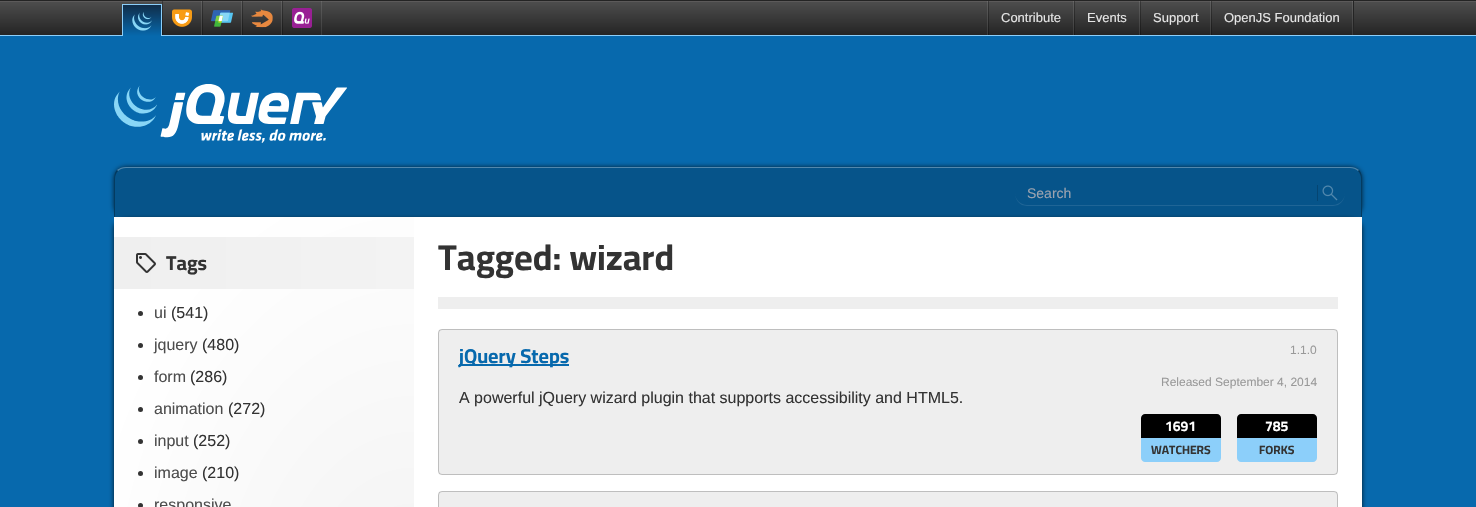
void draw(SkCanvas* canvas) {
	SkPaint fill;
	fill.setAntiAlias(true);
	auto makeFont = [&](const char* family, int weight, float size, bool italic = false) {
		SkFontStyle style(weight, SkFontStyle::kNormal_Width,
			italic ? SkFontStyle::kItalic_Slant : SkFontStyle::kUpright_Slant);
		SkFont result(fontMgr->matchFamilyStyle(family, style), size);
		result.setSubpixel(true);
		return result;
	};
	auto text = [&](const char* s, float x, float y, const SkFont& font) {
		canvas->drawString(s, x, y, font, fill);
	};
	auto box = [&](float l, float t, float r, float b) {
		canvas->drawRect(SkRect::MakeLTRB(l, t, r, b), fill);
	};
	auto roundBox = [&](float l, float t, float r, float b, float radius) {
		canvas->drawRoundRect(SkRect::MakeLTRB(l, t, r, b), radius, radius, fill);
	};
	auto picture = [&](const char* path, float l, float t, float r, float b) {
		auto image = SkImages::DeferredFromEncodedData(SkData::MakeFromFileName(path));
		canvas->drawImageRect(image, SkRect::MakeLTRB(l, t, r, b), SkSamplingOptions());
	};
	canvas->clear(0xFF0769AD);
	{
		const SkColor colors[] = {0xFF5C5A5A, 0xFF4D4D4D, 0xFF242424};
		const float stops[] = {0.03f, 0.03f, 1};
		const SkPoint ends[] = {{738, 1}, {738, 35}};
		fill.setShader(SkGradientShader::MakeLinear(ends, colors, stops, 3, SkTileMode::kClamp));
		fill.setAlpha(255);
	}
	box(0, 1, 1476, 35);
	{
		const SkColor colors[] = {0xFF403F3F, 0xFF363636, 0xFF191919};
		const float stops[] = {0.03f, 0.03f, 1};
		const SkPoint ends[] = {{738, 1}, {738, 35}};
		fill.setShader(SkGradientShader::MakeLinear(ends, colors, stops, 3, SkTileMode::kClamp));
		fill.setAlpha(255);
	}
	box(1211, 1, 1212, 35);
	{
		const SkColor colors[] = {0xFF6C6B6B, 0xFF5F5F5F, 0xFF3A3A3A};
		const float stops[] = {0.03f, 0.03f, 1};
		const SkPoint ends[] = {{738, 1}, {738, 35}};
		fill.setShader(SkGradientShader::MakeLinear(ends, colors, stops, 3, SkTileMode::kClamp));
		fill.setAlpha(255);
	}
	box(1352, 1, 1353, 35);
	{
		const SkColor colors[] = {0xFF403F3F, 0xFF363636, 0xFF191919};
		const float stops[] = {0.03f, 0.03f, 1};
		const SkPoint ends[] = {{738, 1}, {738, 35}};
		fill.setShader(SkGradientShader::MakeLinear(ends, colors, stops, 3, SkTileMode::kClamp));
		fill.setAlpha(255);
	}
	box(1140, 1, 1141, 35);
	{
		const SkColor colors[] = {0xFF6C6B6B, 0xFF5F5F5F, 0xFF3A3A3A};
		const float stops[] = {0.03f, 0.03f, 1};
		const SkPoint ends[] = {{738, 1}, {738, 35}};
		fill.setShader(SkGradientShader::MakeLinear(ends, colors, stops, 3, SkTileMode::kClamp));
		fill.setAlpha(255);
	}
	box(1210, 1, 1211, 35);
	{
		const SkColor colors[] = {0xFF403F3F, 0xFF363636, 0xFF191919};
		const float stops[] = {0.03f, 0.03f, 1};
		const SkPoint ends[] = {{738, 1}, {738, 35}};
		fill.setShader(SkGradientShader::MakeLinear(ends, colors, stops, 3, SkTileMode::kClamp));
		fill.setAlpha(255);
	}
	box(1074, 1, 1075, 35);
	{
		const SkColor colors[] = {0xFF6C6B6B, 0xFF5F5F5F, 0xFF3A3A3A};
		const float stops[] = {0.03f, 0.03f, 1};
		const SkPoint ends[] = {{738, 1}, {738, 35}};
		fill.setShader(SkGradientShader::MakeLinear(ends, colors, stops, 3, SkTileMode::kClamp));
		fill.setAlpha(255);
	}
	box(1139, 1, 1140, 35);
	{
		const SkColor colors[] = {0xFF403F3F, 0xFF363636, 0xFF191919};
		const float stops[] = {0.03f, 0.03f, 1};
		const SkPoint ends[] = {{738, 1}, {738, 35}};
		fill.setShader(SkGradientShader::MakeLinear(ends, colors, stops, 3, SkTileMode::kClamp));
		fill.setAlpha(255);
	}
	box(988, 1, 989, 35);
	{
		const SkColor colors[] = {0xFF6C6B6B, 0xFF5F5F5F, 0xFF3A3A3A};
		const float stops[] = {0.03f, 0.03f, 1};
		const SkPoint ends[] = {{738, 1}, {738, 35}};
		fill.setShader(SkGradientShader::MakeLinear(ends, colors, stops, 3, SkTileMode::kClamp));
		fill.setAlpha(255);
	}
	box(1073, 1, 1074, 35);
	box(987, 1, 988, 35);
	{
		const SkColor colors[] = {0xFF403F3F, 0xFF363636, 0xFF191919};
		const float stops[] = {0.03f, 0.03f, 1};
		const SkPoint ends[] = {{738, 1}, {738, 35}};
		fill.setShader(SkGradientShader::MakeLinear(ends, colors, stops, 3, SkTileMode::kClamp));
		fill.setAlpha(255);
	}
	box(282, 1, 283, 35);
	{
		const SkColor colors[] = {0xFF6C6B6B, 0xFF5F5F5F, 0xFF3A3A3A};
		const float stops[] = {0.03f, 0.03f, 1};
		const SkPoint ends[] = {{738, 1}, {738, 35}};
		fill.setShader(SkGradientShader::MakeLinear(ends, colors, stops, 3, SkTileMode::kClamp));
		fill.setAlpha(255);
	}
	box(321, 1, 322, 35);
	{
		const SkColor colors[] = {0xFF403F3F, 0xFF363636, 0xFF191919};
		const float stops[] = {0.03f, 0.03f, 1};
		const SkPoint ends[] = {{738, 1}, {738, 35}};
		fill.setShader(SkGradientShader::MakeLinear(ends, colors, stops, 3, SkTileMode::kClamp));
		fill.setAlpha(255);
	}
	box(242, 1, 243, 35);
	{
		const SkColor colors[] = {0xFF6C6B6B, 0xFF5F5F5F, 0xFF3A3A3A};
		const float stops[] = {0.03f, 0.03f, 1};
		const SkPoint ends[] = {{738, 1}, {738, 35}};
		fill.setShader(SkGradientShader::MakeLinear(ends, colors, stops, 3, SkTileMode::kClamp));
		fill.setAlpha(255);
	}
	box(281, 1, 282, 35);
	{
		const SkColor colors[] = {0xFF403F3F, 0xFF363636, 0xFF191919};
		const float stops[] = {0.03f, 0.03f, 1};
		const SkPoint ends[] = {{738, 1}, {738, 35}};
		fill.setShader(SkGradientShader::MakeLinear(ends, colors, stops, 3, SkTileMode::kClamp));
		fill.setAlpha(255);
	}
	box(202, 1, 203, 35);
	{
		const SkColor colors[] = {0xFF6C6B6B, 0xFF5F5F5F, 0xFF3A3A3A};
		const float stops[] = {0.03f, 0.03f, 1};
		const SkPoint ends[] = {{738, 1}, {738, 35}};
		fill.setShader(SkGradientShader::MakeLinear(ends, colors, stops, 3, SkTileMode::kClamp));
		fill.setAlpha(255);
	}
	box(241, 1, 242, 35);
	{
		const SkColor colors[] = {0xFF403F3F, 0xFF363636, 0xFF191919};
		const float stops[] = {0.03f, 0.03f, 1};
		const SkPoint ends[] = {{738, 1}, {738, 35}};
		fill.setShader(SkGradientShader::MakeLinear(ends, colors, stops, 3, SkTileMode::kClamp));
		fill.setAlpha(255);
	}
	box(162, 1, 163, 35);
	{
		const SkColor colors[] = {0xFF6C6B6B, 0xFF5F5F5F, 0xFF3A3A3A};
		const float stops[] = {0.03f, 0.03f, 1};
		const SkPoint ends[] = {{738, 1}, {738, 35}};
		fill.setShader(SkGradientShader::MakeLinear(ends, colors, stops, 3, SkTileMode::kClamp));
		fill.setAlpha(255);
	}
	box(201, 1, 202, 35);
	fill.setShader(nullptr);
	fill.setColor(0xFF242424);
	box(0, 0, 1476, 1);
	fill.setColor(0xFF8CCFFA);
	box(0, 35, 1476, 36);
	{
		const SkColor colors[] = {0xFF102D49, 0xFF0769AD};
		const float stops[] = {0, 1};
		const SkPoint ends[] = {{142, 5}, {142, 36}};
		fill.setShader(SkGradientShader::MakeLinear(ends, colors, stops, 2, SkTileMode::kClamp));
		fill.setAlpha(255);
	}
	box(123, 5, 161, 36);
	fill.setShader(nullptr);
	fill.setColor(0xFF8CCFFA);
	box(122, 4, 162, 5);
	box(161, 4, 162, 36);
	box(122, 4, 123, 36);
	picture("image0.png", 132, 12, 152, 31);
	picture("image1.png", 172, 9, 192, 27);
	picture("image2.png", 211, 10, 233, 27);
	picture("image3.png", 251, 9, 273, 28);
	picture("image4.png", 292, 8, 312, 28);
	fill.setColor(0xFF242424);
	box(1353, 1, 1354, 35);
	picture("image5.png", 114, 84, 347, 143);
	canvas->save();
	canvas->clipPath(SkPathBuilder(SkPathFillType::kEvenOdd).moveTo(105, 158).lineTo(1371, 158).lineTo(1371, 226).lineTo(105, 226).close().moveTo(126, 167).lineTo(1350, 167).cubicTo(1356.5f, 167, 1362, 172.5f, 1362, 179).lineTo(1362, 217).lineTo(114, 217).lineTo(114, 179).cubicTo(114, 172.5f, 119.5f, 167, 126, 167).close().detach(), true);
	fill.setColor(0xB3000000);
	fill.setMaskFilter(SkMaskFilter::MakeBlur(kNormal_SkBlurStyle, 2.5f));
	canvas->drawRoundRect(SkRect::MakeLTRB(114, 167, 1362, 217), 12, 12, fill);
	fill.setMaskFilter(nullptr);
	canvas->restore();
	fill.setColor(0x33000000);
	canvas->drawPath(SkPathBuilder().moveTo(126, 167).lineTo(1350, 167).cubicTo(1356.5f, 167, 1362, 172.5f, 1362, 179).lineTo(1362, 217).lineTo(114, 217).lineTo(114, 179).cubicTo(114, 172.5f, 119.5f, 167, 126, 167).close().detach(), fill);
	fill.setColor(0x4DFFFFFF);
	canvas->drawPath(SkPathBuilder().moveTo(126, 167).cubicTo(122, 167, 120, 168, 117, 170).lineTo(118, 171).cubicTo(120, 169, 123, 168, 126, 168).lineTo(1350, 168).cubicTo(1353, 168, 1356, 169, 1358, 171).lineTo(1359, 170).cubicTo(1356, 168, 1354, 167, 1350, 167).close().detach(), fill);
	fill.setColor(0x4D000000);
	canvas->drawPath(SkPathBuilder().moveTo(1361, 217).lineTo(1362, 217).lineTo(1362, 179).cubicTo(1362, 176, 1361, 172, 1359, 170).lineTo(1358, 171).cubicTo(1360, 173, 1361, 176, 1361, 179).close().detach(), fill);
	canvas->drawPath(SkPathBuilder().moveTo(114, 217).lineTo(115, 217).lineTo(115, 179).cubicTo(115, 176, 116, 173, 118, 171).lineTo(117, 170).cubicTo(115, 172, 114, 176, 114, 179).close().detach(), fill);
	fill.setColor(0xFF1F6596);
	canvas->drawPath(SkPathBuilder().moveTo(1015, 193).cubicTo(1015, 198, 1018, 203, 1022, 205).lineTo(1027, 206).lineTo(1333, 206).lineTo(1338, 205).cubicTo(1342, 203, 1345, 198, 1345, 193).cubicTo(1345, 200, 1339, 205, 1333, 205).lineTo(1027, 205).cubicTo(1021, 205, 1015, 200, 1015, 193).close().detach(), fill);
	picture("image6.png", 1322, 185, 1338, 201);
	fill.setColor(0xFF054572);
	box(1317, 185, 1318, 201);
	fill.setColor(0xCC000000);
	fill.setMaskFilter(SkMaskFilter::MakeBlur(kNormal_SkBlurStyle, 2.5f));
	canvas->drawRoundRect(SkRect::MakeLTRB(120, 220, 1362, 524), 9, 9, fill);
	fill.setMaskFilter(nullptr);
	fill.setMaskFilter(SkMaskFilter::MakeBlur(kNormal_SkBlurStyle, 2.5f));
	canvas->drawRoundRect(SkRect::MakeLTRB(114, 220, 1356, 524), 9, 9, fill);
	fill.setMaskFilter(nullptr);
	fill.setColor(0xFFFFFFFF);
	box(414, 217, 1362, 507);
	{
		const SkColor colors[] = {0xFFF2F2F2, 0xFFFFFFFF};
		const float stops[] = {0, 0.8f};
		SkMatrix m = SkMatrix::Translate(414, 629).preScale(424, 583);
		fill.setShader(SkGradientShader::MakeRadial({0, 0}, 1, colors, stops, 2, SkTileMode::kClamp, 0, &m));
		fill.setAlpha(255);
	}
	box(114, 217, 414, 507);
	{
		const SkColor colors[] = {0xFFEFEFEF, 0xFFF3F3F3};
		const float stops[] = {0, 1};
		const SkPoint ends[] = {{114, 263}, {414, 263}};
		fill.setShader(SkGradientShader::MakeLinear(ends, colors, stops, 2, SkTileMode::kClamp));
		fill.setAlpha(255);
	}
	box(114, 237, 414, 289);
	picture("image7.png", 136, 253, 156, 273);
	fill.setShader(nullptr);
	fill.setColor(0xFF333333);
	canvas->drawCircle(140.5f, 313.5f, 2.5f, fill);
	canvas->drawCircle(140.5f, 345.5f, 2.5f, fill);
	canvas->drawCircle(140.5f, 377.5f, 2.5f, fill);
	canvas->drawCircle(140.5f, 409.5f, 2.5f, fill);
	canvas->drawCircle(140.5f, 441.5f, 2.5f, fill);
	canvas->drawCircle(140.5f, 473.5f, 2.5f, fill);
	canvas->drawCircle(140.5f, 505.5f, 2.5f, fill);
	fill.setColor(0xFFEEEEEE);
	box(438, 297, 1338, 309);
	roundBox(438, 329, 1338, 475, 4);
	fill.setStyle(SkPaint::kStroke_Style);
	fill.setStrokeWidth(1);
	fill.setColor(0x33000000);
	canvas->drawRoundRect(SkRect::MakeLTRB(438.5f, 329.5f, 1337.5f, 474.5f), 3.5f, 3.5f, fill);
	fill.setStyle(SkPaint::kFill_Style);
	fill.setColor(0xFF0769AD);
	box(459, 364, 569, 366);
	fill.setColor(0xFF000000);
	canvas->drawPath(SkPathBuilder().moveTo(1145, 414).lineTo(1217, 414).cubicTo(1219, 414, 1221, 416, 1221, 418).lineTo(1221, 438).lineTo(1141, 438).lineTo(1141, 418).cubicTo(1141, 416, 1143, 414, 1145, 414).close().detach(), fill);
	fill.setColor(0xFF8CCFFA);
	canvas->drawPath(SkPathBuilder().moveTo(1141, 438).lineTo(1221, 438).lineTo(1221, 458).cubicTo(1221, 460, 1219, 462, 1217, 462).lineTo(1145, 462).cubicTo(1143, 462, 1141, 460, 1141, 458).close().detach(), fill);
	fill.setColor(0xFF000000);
	canvas->drawPath(SkPathBuilder().moveTo(1241, 414).lineTo(1313, 414).cubicTo(1315, 414, 1317, 416, 1317, 418).lineTo(1317, 438).lineTo(1237, 438).lineTo(1237, 418).cubicTo(1237, 416, 1239, 414, 1241, 414).close().detach(), fill);
	fill.setColor(0xFF8CCFFA);
	canvas->drawPath(SkPathBuilder().moveTo(1237, 438).lineTo(1317, 438).lineTo(1317, 458).cubicTo(1317, 460, 1315, 462, 1313, 462).lineTo(1241, 462).cubicTo(1239, 462, 1237, 460, 1237, 458).close().detach(), fill);
	fill.setColor(0xFFEEEEEE);
	roundBox(438, 491, 1338, 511, 4);
	fill.setStyle(SkPaint::kStroke_Style);
	fill.setColor(0x33000000);
	canvas->drawRoundRect(SkRect::MakeLTRB(438.5f, 491.5f, 1337.5f, 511.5f), 3.5f, 3.5f, fill);
	auto font1 = makeFont("Liberation Sans", 400, 13);
	fill.setStyle(SkPaint::kFill_Style);
	fill.setColor(0xFFE6E6E6);
	text("Contribute", 1001, 22, font1);
	text("Events", 1087, 22, font1);
	text("Support", 1153, 22, font1);
	text("OpenJS Foundation", 1224, 22, font1);
	auto font2 = makeFont("Liberation Sans", 400, 14);
	fill.setColor(0xFF9CA3AF);
	text("Search", 1027, 198, font2);
	auto font3 = makeFont("Cairo", 700, 20);
	fill.setColor(0xFF333333);
	text("Tags", 166, 270, font3);
	auto font4 = makeFont("Liberation Sans", 400, 16);
	fill.setColor(0xFF4D4D4D);
	text("ui", 154, 318, font4);
	fill.setColor(0xFF333333);
	text("(541)", 171, 318, font4);
	fill.setColor(0xFF4D4D4D);
	text("jquery", 154, 350, font4);
	fill.setColor(0xFF333333);
	text("(480)", 202, 350, font4);
	fill.setColor(0xFF4D4D4D);
	text("form", 154, 382, font4);
	fill.setColor(0xFF333333);
	text("(286)", 190, 382, font4);
	fill.setColor(0xFF4D4D4D);
	text("animation", 154, 414, font4);
	fill.setColor(0xFF333333);
	text("(272)", 228, 414, font4);
	fill.setColor(0xFF4D4D4D);
	text("input", 154, 446, font4);
	fill.setColor(0xFF333333);
	text("(252)", 193, 446, font4);
	fill.setColor(0xFF4D4D4D);
	text("image", 154, 478, font4);
	fill.setColor(0xFF333333);
	text("(210)", 202, 478, font4);
	fill.setColor(0xFF4D4D4D);
	text("responsive", 154, 510, font4);
	auto font5 = makeFont("Cairo", 700, 36);
	fill.setColor(0xFF333333);
	text("Tagged: wizard", 438, 270, font5);
	fill.setColor(0xFF0769AD);
	text("jQuery Steps", 459, 363, font3);
	fill.setColor(0xFF333333);
	text("A powerful jQuery wizard plugin that supports accessibility and HTML5.", 459, 403, font4);
	auto font6 = makeFont("Liberation Sans", 400, 12);
	fill.setColor(0xFF999999);
	text("1.1.0", 1290, 354, font6);
	text("Released September 4, 2014", 1161, 386, font6);
	auto font7 = makeFont("Cairo", 700, 14);
	fill.setColor(0xFFFFFFFF);
	text("1691", 1165, 431, font7);
	auto font8 = makeFont("Cairo", 700, 12);
	fill.setColor(0xFF333333);
	text("WATCHERS", 1151, 454, font8);
	fill.setColor(0xFFFFFFFF);
	text("785", 1265, 431, font7);
	fill.setColor(0xFF333333);
	text("FORKS", 1259, 454, font8);
}
